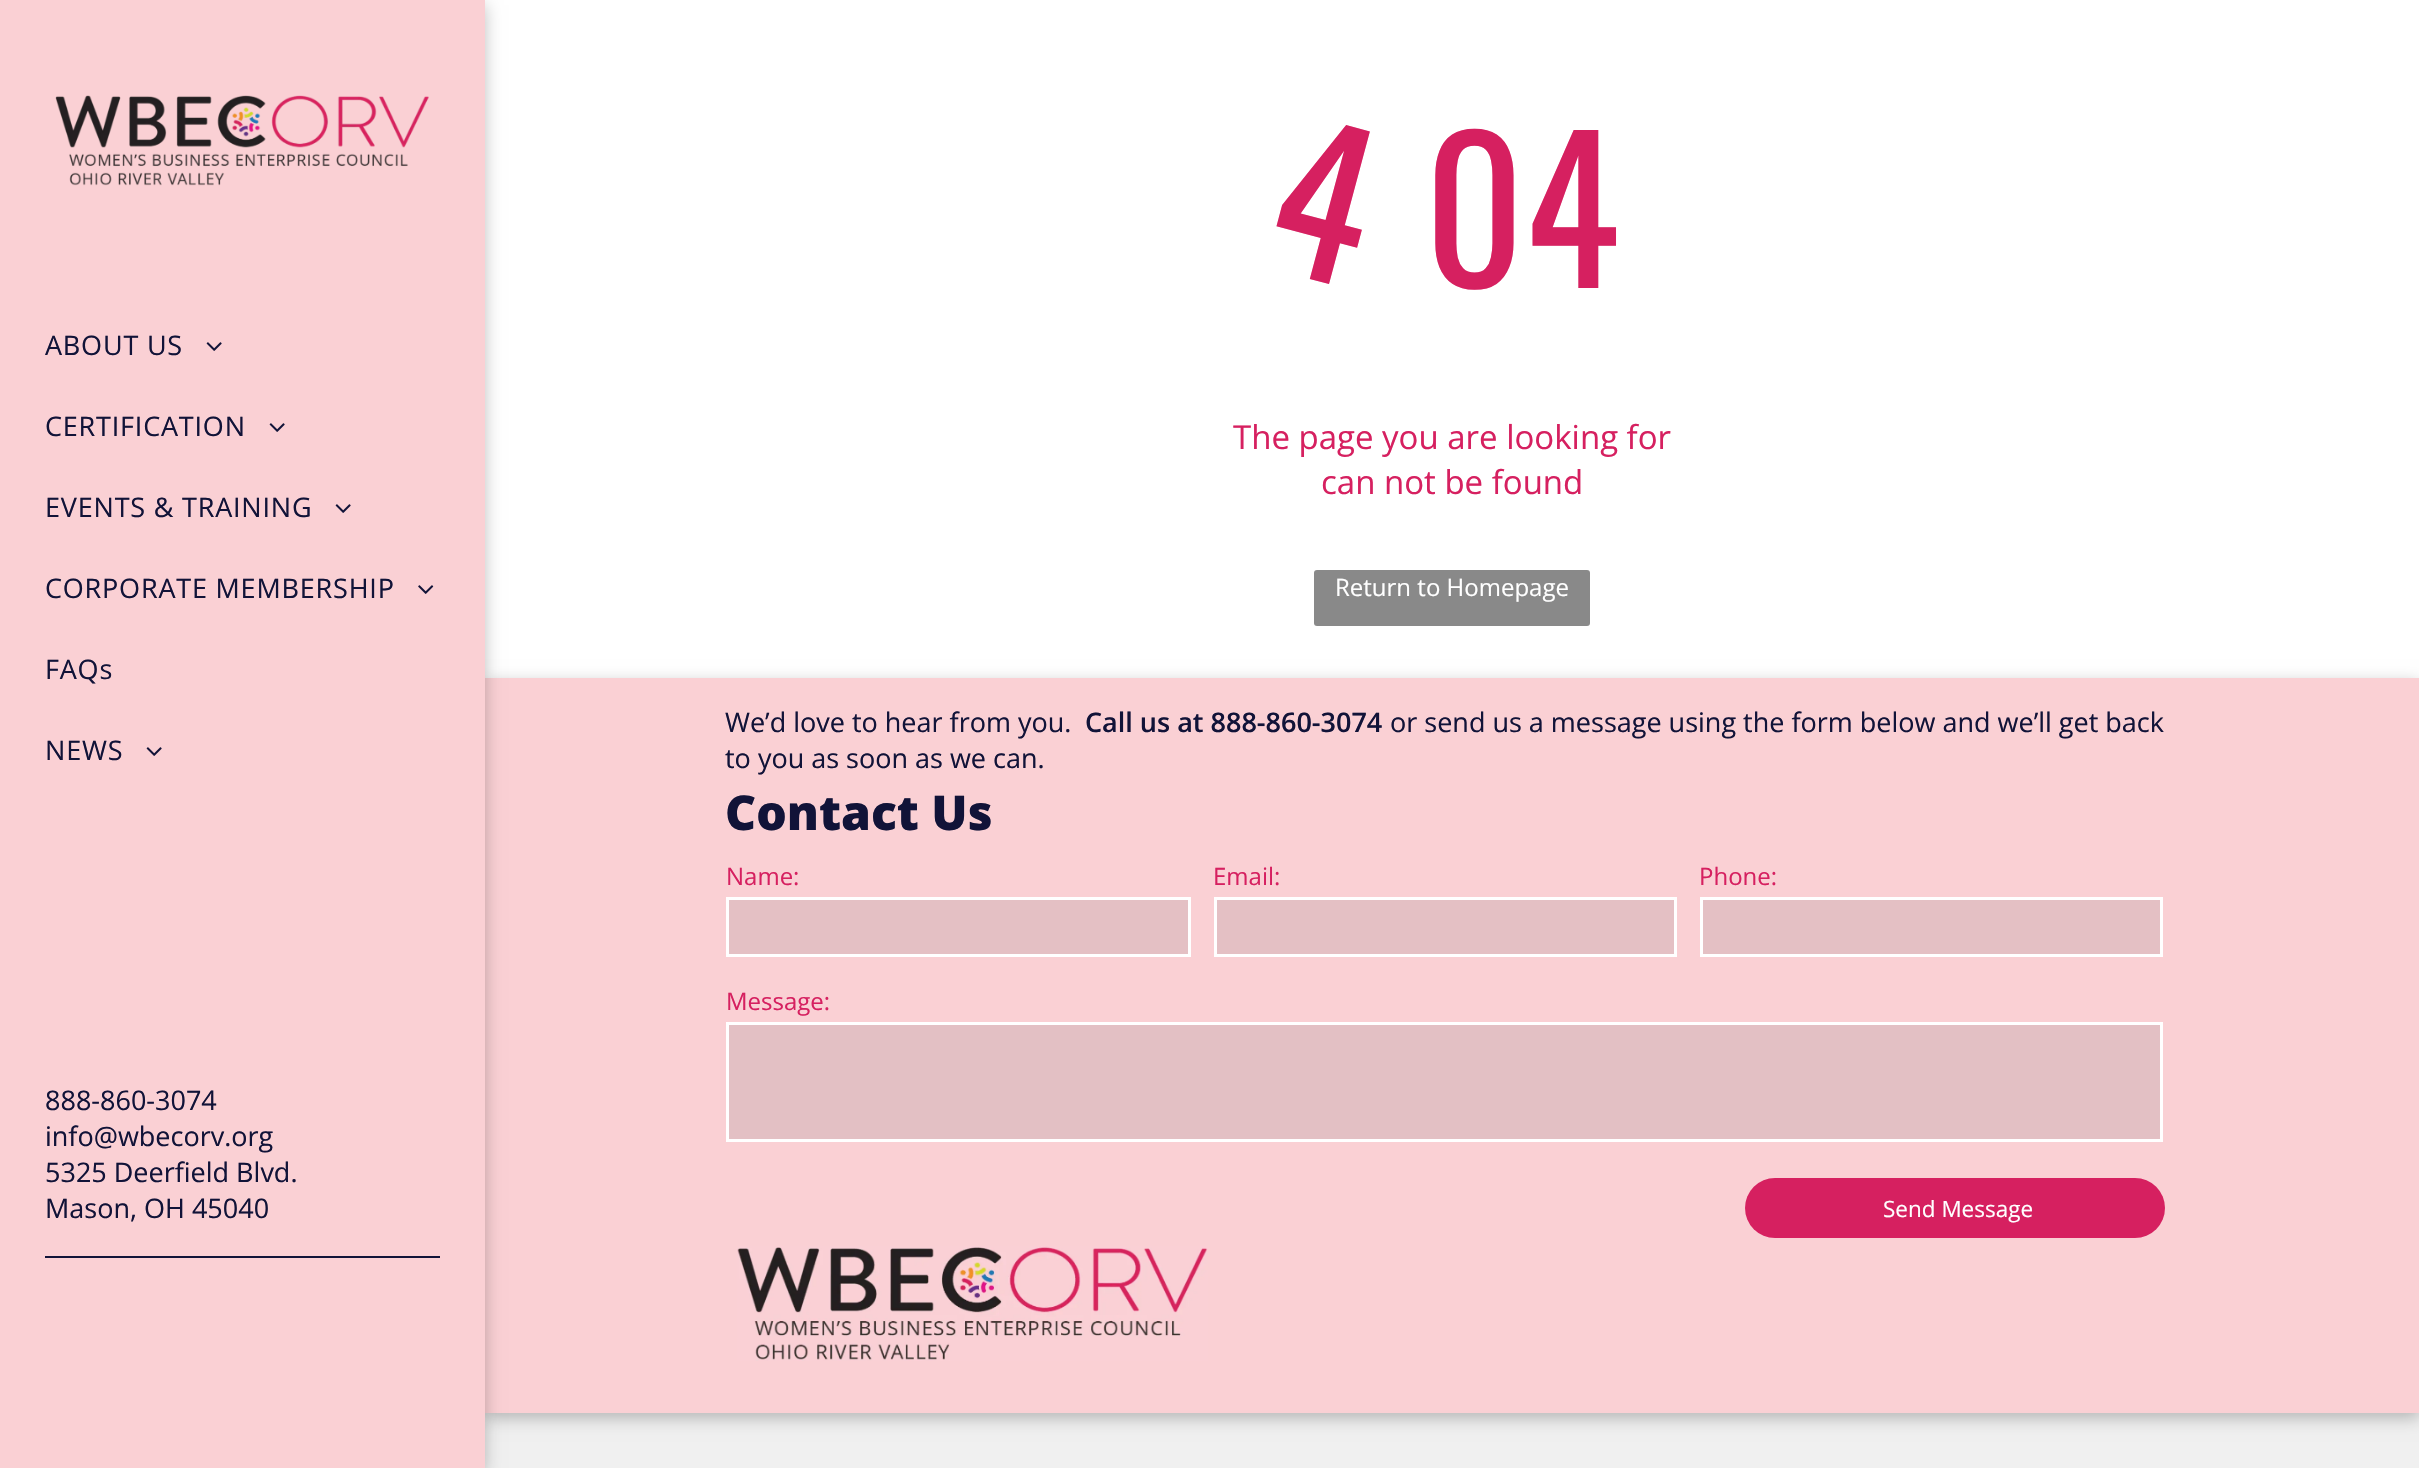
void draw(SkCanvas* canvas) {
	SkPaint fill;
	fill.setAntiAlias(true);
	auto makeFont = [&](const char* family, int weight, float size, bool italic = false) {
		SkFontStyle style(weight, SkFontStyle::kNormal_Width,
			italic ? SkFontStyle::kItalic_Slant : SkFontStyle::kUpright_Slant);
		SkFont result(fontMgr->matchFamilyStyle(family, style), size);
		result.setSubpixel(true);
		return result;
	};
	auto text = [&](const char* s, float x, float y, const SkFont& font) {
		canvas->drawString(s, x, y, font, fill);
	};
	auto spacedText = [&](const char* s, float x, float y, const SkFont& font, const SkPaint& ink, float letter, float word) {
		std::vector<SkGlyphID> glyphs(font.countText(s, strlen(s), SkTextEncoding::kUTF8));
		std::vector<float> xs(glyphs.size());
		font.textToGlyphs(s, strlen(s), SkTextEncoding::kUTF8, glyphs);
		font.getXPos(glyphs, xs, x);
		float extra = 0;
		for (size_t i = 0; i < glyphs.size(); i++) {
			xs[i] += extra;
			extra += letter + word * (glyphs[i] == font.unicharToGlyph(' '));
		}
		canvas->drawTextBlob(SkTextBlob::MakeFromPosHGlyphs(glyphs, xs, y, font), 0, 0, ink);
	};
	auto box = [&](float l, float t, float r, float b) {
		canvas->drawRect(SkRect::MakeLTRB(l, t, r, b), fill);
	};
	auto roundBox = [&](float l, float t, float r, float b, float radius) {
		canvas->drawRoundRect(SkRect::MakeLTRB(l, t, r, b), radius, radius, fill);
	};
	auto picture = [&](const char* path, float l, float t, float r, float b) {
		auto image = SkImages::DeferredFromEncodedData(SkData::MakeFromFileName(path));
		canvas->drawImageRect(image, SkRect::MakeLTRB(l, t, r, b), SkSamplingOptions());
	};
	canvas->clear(0xFFFFFFFF);
	fill.setColor(0xFFF0F0F0);
	box(485, 1413, 2419, 1468);
	fill.setColor(0x40000000);
	fill.setMaskFilter(SkMaskFilter::MakeBlur(kNormal_SkBlurStyle, 8));
	canvas->drawRect(SkRect::MakeLTRB(485, 683, 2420, 1418), fill);
	fill.setMaskFilter(nullptr);
	fill.setColor(0xFFFAD0D4);
	box(485, 678, 2419, 1413);
	fill.setColor(0x40000000);
	fill.setMaskFilter(SkMaskFilter::MakeBlur(kNormal_SkBlurStyle, 8));
	canvas->drawRect(SkRect::MakeLTRB(0, 5, 485, 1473), fill);
	fill.setMaskFilter(nullptr);
	fill.setColor(0xFFFAD0D4);
	box(0, 0, 485, 1468);
	picture("image0.png", 55, 95, 429, 186);
	picture("image1.png", 206, 342, 222, 351);
	picture("image1.png", 269, 423, 285, 432);
	picture("image1.png", 335, 504, 351, 513);
	picture("image2.png", 418, 585, 434, 594);
	picture("image1.png", 146, 747, 162, 756);
	fill.setColor(0xFF111338);
	box(45, 1256, 440, 1258);
	fill.setColor(0xFF898989);
	roundBox(1314, 570, 1590, 626, 3);
	fill.setColor(0xFFE4C0C4);
	canvas->drawRect(SkRect::MakeLTRB(727.5f, 898.5f, 1189.5f, 955.5f), fill);
	fill.setStyle(SkPaint::kStroke_Style);
	fill.setStrokeWidth(3);
	fill.setColor(0xFFFFFFFF);
	canvas->drawRect(SkRect::MakeLTRB(727.5f, 898.5f, 1189.5f, 955.5f), fill);
	fill.setStyle(SkPaint::kFill_Style);
	fill.setColor(0xFFE4C0C4);
	canvas->drawRect(SkRect::MakeLTRB(1215.5f, 898.5f, 1675.5f, 955.5f), fill);
	fill.setStyle(SkPaint::kStroke_Style);
	fill.setColor(0xFFFFFFFF);
	canvas->drawRect(SkRect::MakeLTRB(1215.5f, 898.5f, 1675.5f, 955.5f), fill);
	fill.setStyle(SkPaint::kFill_Style);
	fill.setColor(0xFFE4C0C4);
	canvas->drawRect(SkRect::MakeLTRB(1701.5f, 898.5f, 2161.5f, 955.5f), fill);
	fill.setStyle(SkPaint::kStroke_Style);
	fill.setColor(0xFFFFFFFF);
	canvas->drawRect(SkRect::MakeLTRB(1701.5f, 898.5f, 2161.5f, 955.5f), fill);
	fill.setStyle(SkPaint::kFill_Style);
	fill.setColor(0xFFE3C0C4);
	canvas->drawRect(SkRect::MakeLTRB(727.5f, 1023.5f, 2161.5f, 1140.5f), fill);
	fill.setStyle(SkPaint::kStroke_Style);
	fill.setColor(0xFFFFFFFF);
	canvas->drawRect(SkRect::MakeLTRB(727.5f, 1023.5f, 2161.5f, 1140.5f), fill);
	fill.setStyle(SkPaint::kFill_Style);
	fill.setColor(0xFFD62060);
	roundBox(1745, 1178, 2165, 1238, 30);
	picture("image3.png", 737, 1246, 1208, 1361);
	auto font1 = makeFont("Open Sans", 400, 27);
	fill.setColor(0xFF111338);
	spacedText("ABOUT US", 45, 355, font1, fill, 0.8f, 0);
	spacedText("CERTIFICATION", 45, 436, font1, fill, 0.8f, 0);
	spacedText("EVENTS & TRAINING", 45, 517, font1, fill, 0.8f, 0);
	spacedText("CORPORATE MEMBERSHIP", 45, 598, font1, fill, 0.8f, 0);
	spacedText("FAQs", 45, 679, font1, fill, 0.8f, 0);
	spacedText("NEWS", 45, 760, font1, fill, 0.8f, 0);
	text("888-860-3074", 45, 1110, font1);
	text("info@wbecorv.org", 45, 1146, font1);
	text("5325 Deerfield Blvd.", 45, 1182, font1);
	text("Mason, OH 45040", 45, 1218, font1);
	auto font2 = makeFont("Oswald", 400, 195);
	fill.setColor(0xFFD62060);
	canvas->save();
	canvas->rotate(15, 1258, 265);
	text("4", 1258, 265, font2);
	canvas->restore();
	text("04", 1424, 288, font2);
	auto font3 = makeFont("Open Sans", 400, 33);
	text("The page you are looking for", 1233, 449, font3);
	text("can not be found", 1321, 494, font3);
	auto font4 = makeFont("Open Sans", 400, 24);
	fill.setColor(0xFFFFFFFF);
	text("Return to Homepage", 1335, 596, font4);
	fill.setColor(0xFF111338);
	text("We’d love to hear from you.", 725, 732, font1);
	auto font5 = makeFont("Open Sans", 600, 27);
	text("Call us at 888-860-3074", 1085, 732, font5);
	text("or send us a message using the form below and we’ll get back", 1390, 732, font1);
	text("to you as soon as we can.", 725, 768, font1);
	auto font6 = makeFont("Open Sans", 800, 48);
	text("Contact Us", 725, 830, font6);
	fill.setColor(0xFFD62060);
	text("Name:", 726, 885, font4);
	text("Email:", 1213, 885, font4);
	text("Phone:", 1699, 885, font4);
	text("Message:", 726, 1010, font4);
	auto font7 = makeFont("Open Sans", 400, 22.5f);
	fill.setColor(0xFFFFFFFF);
	text("Send Message", 1883, 1217, font7);
}
